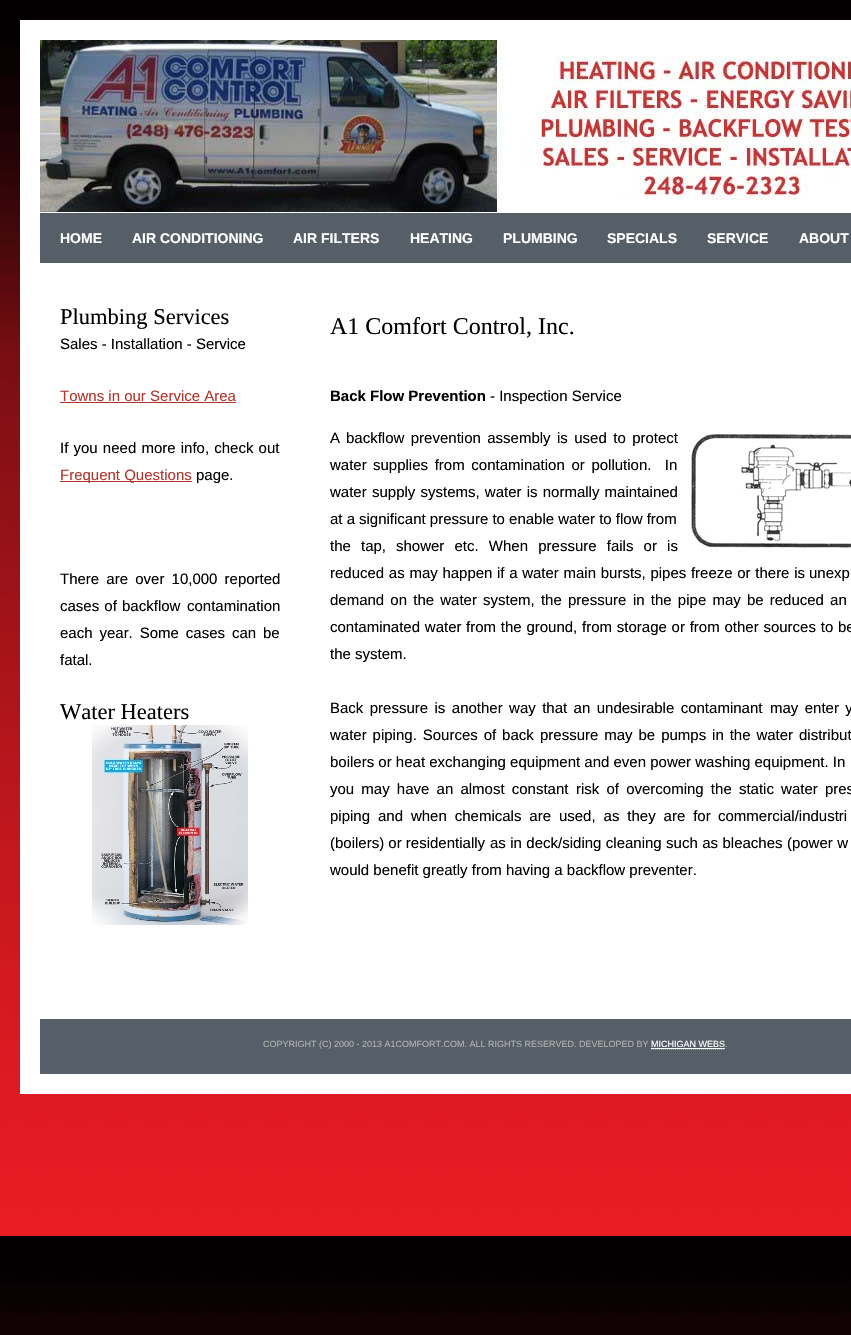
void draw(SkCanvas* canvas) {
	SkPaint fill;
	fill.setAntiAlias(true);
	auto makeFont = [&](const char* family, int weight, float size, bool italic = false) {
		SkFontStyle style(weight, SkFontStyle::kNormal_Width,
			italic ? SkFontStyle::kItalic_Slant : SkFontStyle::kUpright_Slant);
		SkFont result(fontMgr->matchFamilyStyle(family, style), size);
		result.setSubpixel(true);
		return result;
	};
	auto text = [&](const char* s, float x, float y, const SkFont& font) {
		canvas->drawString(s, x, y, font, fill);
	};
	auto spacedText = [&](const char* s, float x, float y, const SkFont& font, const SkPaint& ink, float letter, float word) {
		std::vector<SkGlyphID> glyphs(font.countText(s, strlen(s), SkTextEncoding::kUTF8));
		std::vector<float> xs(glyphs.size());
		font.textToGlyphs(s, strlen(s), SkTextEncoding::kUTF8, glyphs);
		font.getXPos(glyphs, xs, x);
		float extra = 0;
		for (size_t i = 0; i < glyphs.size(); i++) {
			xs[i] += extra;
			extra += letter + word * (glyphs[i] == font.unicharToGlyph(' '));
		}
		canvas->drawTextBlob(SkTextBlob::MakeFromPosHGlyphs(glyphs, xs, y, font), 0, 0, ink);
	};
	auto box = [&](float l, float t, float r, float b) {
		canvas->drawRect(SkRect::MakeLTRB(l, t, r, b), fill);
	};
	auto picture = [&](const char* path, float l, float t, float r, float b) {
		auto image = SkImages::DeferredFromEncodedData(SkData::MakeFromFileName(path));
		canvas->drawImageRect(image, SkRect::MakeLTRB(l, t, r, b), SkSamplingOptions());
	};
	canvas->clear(0xFFFFFFFF);
	picture("image0.png", 0, 0, 851, 1335);
	fill.setColor(0xFFFFFFFF);
	box(20, 20, 851, 1094);
	picture("image1.png", 40, 40, 851, 212);
	fill.setColor(0xFF565F68);
	box(40, 213, 851, 263);
	fill.setColor(0xFFB5352D);
	box(60, 402, 236, 403);
	box(60, 481, 192, 482);
	picture("image2.png", 92, 725, 248, 925);
	picture("image3.png", 691, 434, 851, 550);
	fill.setColor(0xFF565F68);
	box(40, 1019, 851, 1074);
	fill.setStyle(SkPaint::kStroke_Style);
	fill.setStrokeWidth(1);
	fill.setColor(0xFF999999);
	fill.setPathEffect(SkDashPathEffect::Make({{1, 1}}, 0));
	canvas->drawPath(SkPathBuilder().moveTo(651, 1049.5f).lineTo(725, 1049.5f).detach(), fill);
	fill.setPathEffect(nullptr);
	fill.setStyle(SkPaint::kFill_Style);
	fill.setColor(0xFFFFFFFF);
	box(651, 1048, 725, 1049);
	auto font1 = makeFont("Liberation Sans", 700, 14);
	text("HOME", 60, 243, font1);
	text("AIR CONDITIONING", 132, 243, font1);
	text("AIR FILTERS", 293, 243, font1);
	text("HEATING", 410, 243, font1);
	text("PLUMBING", 503, 243, font1);
	text("SPECIALS", 607, 243, font1);
	text("SERVICE", 707, 243, font1);
	text("ABOUT", 799, 243, font1);
	auto font2 = makeFont("Liberation Serif", 400, 22.5f);
	fill.setColor(0xFF000000);
	text("Plumbing Services", 60, 324, font2);
	auto font3 = makeFont("Liberation Sans", 400, 15);
	text("Sales - Installation - Service", 60, 349, font3);
	fill.setColor(0xFFB5352D);
	text("Towns in our Service Area", 60, 401, font3);
	fill.setColor(0xFF000000);
	spacedText("If you need more info, check out", 60, 453, font3, fill, 0, 1);
	fill.setColor(0xFFB5352D);
	text("Frequent Questions", 60, 480, font3);
	fill.setColor(0xFF000000);
	text("page.", 196, 480, font3);
	spacedText("There are over 10,000 reported", 60, 584, font3, fill, 0, 3);
	spacedText("cases of backflow", 60, 611, font3, fill, 0, 1);
	text("contamination", 187, 611, font3);
	spacedText("each year. Some cases can be", 60, 638, font3, fill, 0, 2.75f);
	text("fatal.", 60, 665, font3);
	text("Water Heaters", 60, 719, font2);
	auto font4 = makeFont("Liberation Serif", 400, 24);
	text("A1 Comfort Control, Inc.", 330, 334, font4);
	auto font5 = makeFont("Liberation Sans", 700, 15);
	text("Back Flow Prevention", 330, 401, font5);
	text("- Inspection Service", 490, 401, font3);
	text("A", 330, 443, font3);
	spacedText("backflow prevention assembly is used to protect", 346, 443, font3, fill, 0, 2.25f);
	text("water", 330, 470, font3);
	spacedText("supplies from contamination or pollution.  In", 373, 470, font3, fill, 0, 2.5f);
	text("water", 330, 497, font3);
	spacedText("supply systems, water is normally maintained", 372, 497, font3, fill, 0, 1);
	text("at a", 330, 524, font3);
	text("significant pressure to enable water to flow from", 359, 524, font3);
	spacedText("the tap,", 330, 551, font3, fill, 0, 6);
	spacedText("shower etc. When pressure fails or is", 396, 551, font3, fill, 0, 6);
	spacedText("reduced as may happen", 330, 578, font3, fill, 0, 0.5f);
	spacedText("if a water main bursts, pipes freeze or there is", 497, 578, font3, fill, 0, 0.5f);
	text("unexp", 809, 578, font3);
	spacedText("demand on the water system, the pressure", 330, 605, font3, fill, 0, 2);
	spacedText("in the pipe may be reduced an", 633, 605, font3, fill, 0, 2);
	spacedText("contaminated water", 330, 632, font3, fill, 0, 0.6f);
	spacedText("from the ground, from storage or from other sources to be", 466, 632, font3, fill, 0, 0.6f);
	text("the system.", 330, 659, font3);
	spacedText("Back pressure is another way that an undesirable contaminant", 330, 713, font3, fill, 0, 2.25f);
	spacedText("may enter y", 770, 713, font3, fill, 0, 2.25f);
	spacedText("water piping. Sources of back", 330, 740, font3, fill, 0, 1.75f);
	spacedText("pressure may be pumps in the water distribut", 540, 740, font3, fill, 0, 1.75f);
	text("boilers or heat exchanging equipment and even power washing equipment. In", 330, 767, font3);
	spacedText("you may have an almost constant", 330, 794, font3, fill, 0, 3);
	spacedText("risk of overcoming the static water pres", 576, 794, font3, fill, 0, 3);
	text("piping", 330, 821, font3);
	spacedText("and when chemicals are used, as they are for", 378, 821, font3, fill, 0, 3.75f);
	spacedText("commercial/industri", 718, 821, font3, fill, 0, 3.75f);
	text("(boilers) or residentially", 330, 848, font3);
	spacedText("as in deck/siding cleaning such as bleaches (power w", 490, 848, font3, fill, 0, 0.25f);
	text("would benefit greatly from having a backflow preventer.", 330, 875, font3);
	auto font6 = makeFont("Liberation Sans", 400, 9);
	fill.setColor(0xFFB2B2B2);
	text("COPYRIGHT (C) 2000 - 2013 A1COMFORT.COM. ALL RIGHTS RESERVED. DEVELOPED BY", 263, 1047, font6);
	fill.setColor(0xFFFFFFFF);
	text("MICHIGAN WEBS", 651, 1047, font6);
	fill.setColor(0xFFB2B2B2);
	text(".", 725, 1047, font6);
}
